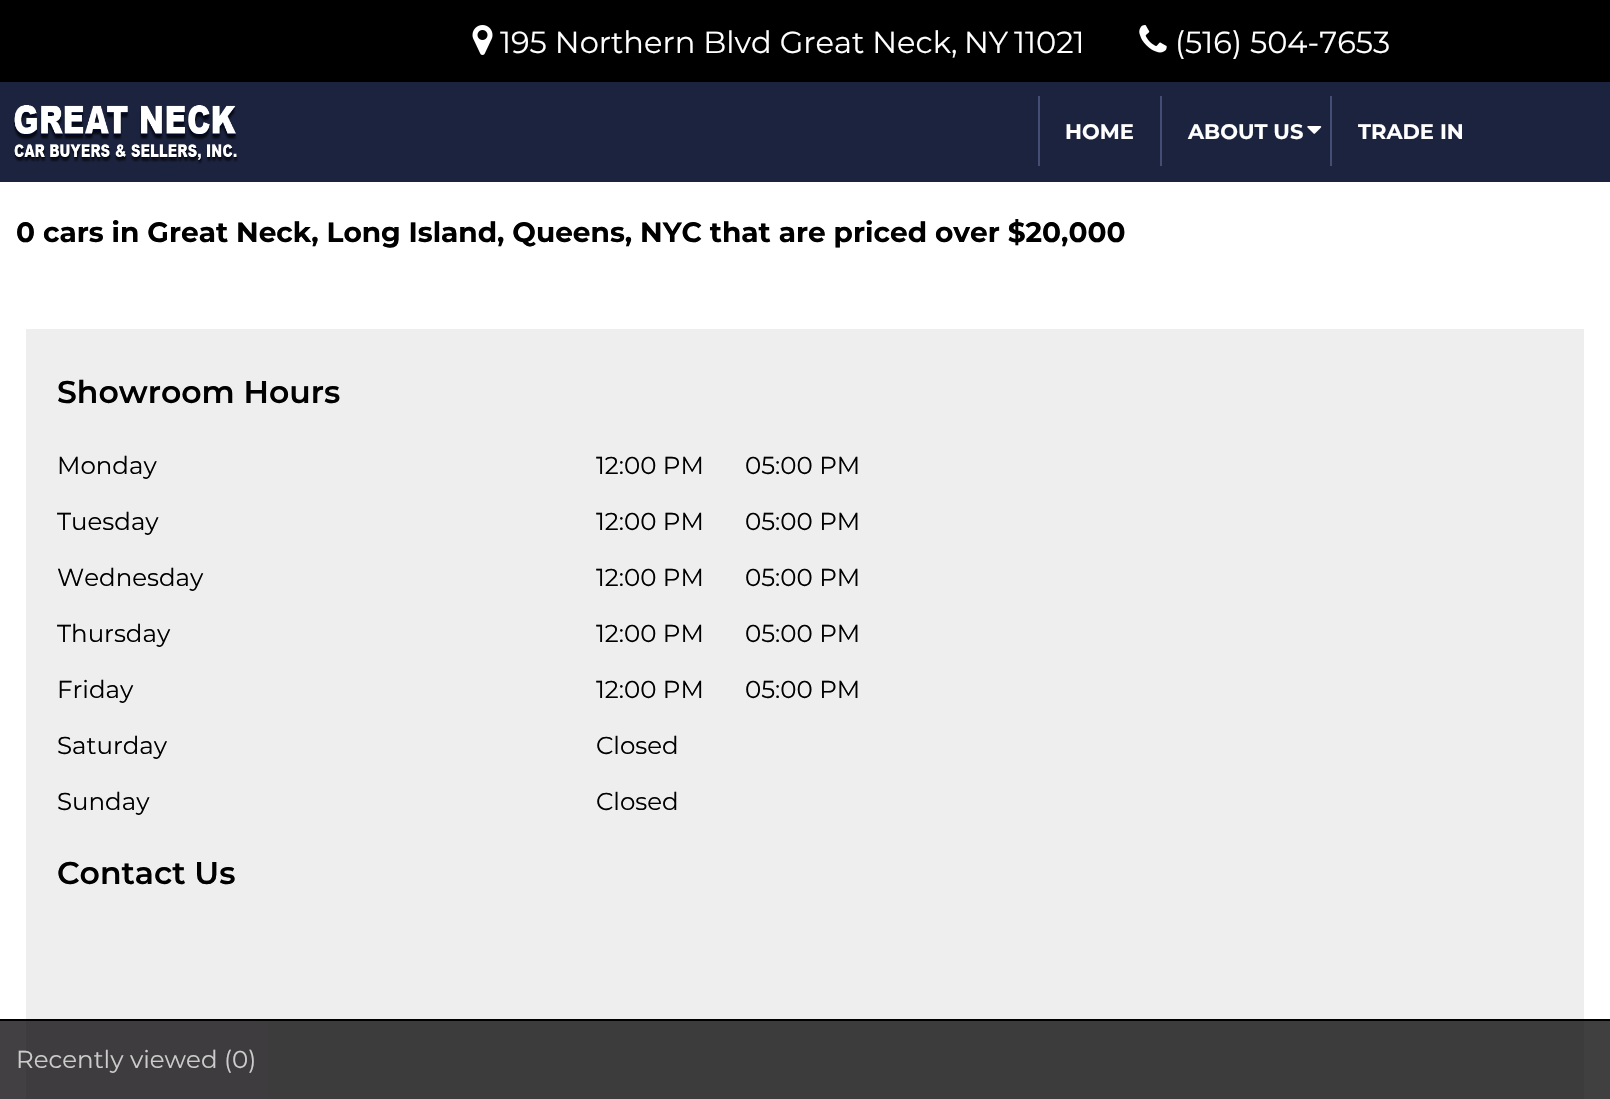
void draw(SkCanvas* canvas) {
	SkPaint fill;
	fill.setAntiAlias(true);
	auto makeFont = [&](const char* family, int weight, float size, bool italic = false) {
		SkFontStyle style(weight, SkFontStyle::kNormal_Width,
			italic ? SkFontStyle::kItalic_Slant : SkFontStyle::kUpright_Slant);
		SkFont result(fontMgr->matchFamilyStyle(family, style), size);
		result.setSubpixel(true);
		return result;
	};
	auto text = [&](const char* s, float x, float y, const SkFont& font) {
		canvas->drawString(s, x, y, font, fill);
	};
	auto box = [&](float l, float t, float r, float b) {
		canvas->drawRect(SkRect::MakeLTRB(l, t, r, b), fill);
	};
	auto picture = [&](const char* path, float l, float t, float r, float b) {
		auto image = SkImages::DeferredFromEncodedData(SkData::MakeFromFileName(path));
		canvas->drawImageRect(image, SkRect::MakeLTRB(l, t, r, b), SkSamplingOptions());
	};
	canvas->clear(0xFFFFFFFF);
	fill.setColor(0xFF000000);
	box(0, 0, 1610, 82);
	picture("image0.png", 472, 25, 493, 55);
	picture("image1.png", 1139, 25, 1167, 53);
	fill.setColor(0xFF1C233F);
	box(0, 82, 1610, 182);
	picture("image2.png", 13, 105, 238, 164);
	fill.setColor(0xFF444E74);
	box(1038, 96, 1040, 166);
	box(1160, 96, 1162, 166);
	picture("image3.png", 1307, 126, 1322, 134);
	box(1330, 96, 1332, 166);
	fill.setColor(0xFFEEEEEE);
	box(26, 329, 1584, 1099);
	{
		const SkColor colors[] = {0xBF030003, 0xBF000000};
		const float stops[] = {0, 1};
		const SkPoint ends[] = {{0, 1060}, {1610, 1060}};
		fill.setShader(SkGradientShader::MakeLinear(ends, colors, stops, 2, SkTileMode::kClamp));
		fill.setAlpha(255);
	}
	box(0, 1021, 1610, 1099);
	fill.setShader(nullptr);
	fill.setColor(0xFF000000);
	box(0, 1019, 1610, 1021);
	auto font1 = makeFont("Montserrat", 400, 30.5f);
	fill.setColor(0xFFFFFFFF);
	text("195 Northern Blvd Great Neck,", 500, 53, font1);
	text("NY", 964, 53, font1);
	text("11021", 1014, 53, font1);
	text("(516) 504-7653", 1175, 53, font1);
	auto font2 = makeFont("Montserrat", 700, 21);
	text("HOME", 1065, 139, font2);
	text("ABOUT US", 1188, 139, font2);
	text("TRADE IN", 1358, 139, font2);
	auto font3 = makeFont("Montserrat", 700, 28);
	fill.setColor(0xFF000000);
	text("0 cars in Great Neck, Long Island, Queens, NYC that are priced over $20,000", 16, 242, font3);
	auto font4 = makeFont("Montserrat", 600, 31.5f);
	text("Showroom Hours", 57, 403, font4);
	auto font5 = makeFont("Montserrat", 400, 24.5f);
	text("Monday", 57, 474, font5);
	text("12:00 PM", 596, 474, font5);
	text("05:00 PM", 745, 474, font5);
	text("Tuesday", 57, 530, font5);
	text("12:00 PM", 596, 530, font5);
	text("05:00 PM", 745, 530, font5);
	text("Wednesday", 57, 586, font5);
	text("12:00 PM", 596, 586, font5);
	text("05:00 PM", 745, 586, font5);
	text("Thursday", 57, 642, font5);
	text("12:00 PM", 596, 642, font5);
	text("05:00 PM", 745, 642, font5);
	text("Friday", 57, 698, font5);
	text("12:00 PM", 596, 698, font5);
	text("05:00 PM", 745, 698, font5);
	text("Saturday", 57, 754, font5);
	text("Closed", 596, 754, font5);
	text("Sunday", 57, 810, font5);
	text("Closed", 596, 810, font5);
	text("Contact Us", 57, 884, font4);
	fill.setColor(0xFFCCCCCC);
	text("Recently viewed (0)", 16, 1068, font5);
}
